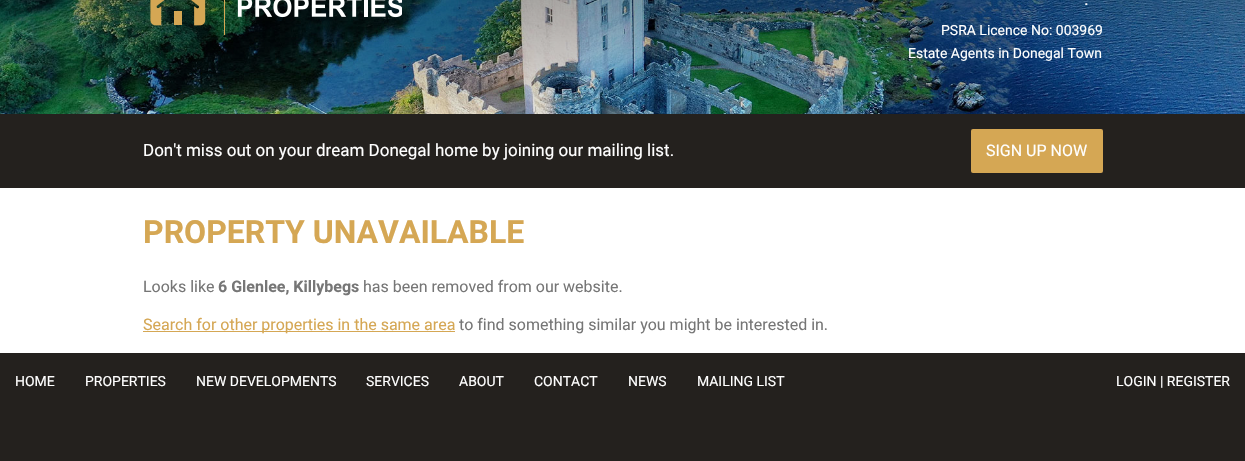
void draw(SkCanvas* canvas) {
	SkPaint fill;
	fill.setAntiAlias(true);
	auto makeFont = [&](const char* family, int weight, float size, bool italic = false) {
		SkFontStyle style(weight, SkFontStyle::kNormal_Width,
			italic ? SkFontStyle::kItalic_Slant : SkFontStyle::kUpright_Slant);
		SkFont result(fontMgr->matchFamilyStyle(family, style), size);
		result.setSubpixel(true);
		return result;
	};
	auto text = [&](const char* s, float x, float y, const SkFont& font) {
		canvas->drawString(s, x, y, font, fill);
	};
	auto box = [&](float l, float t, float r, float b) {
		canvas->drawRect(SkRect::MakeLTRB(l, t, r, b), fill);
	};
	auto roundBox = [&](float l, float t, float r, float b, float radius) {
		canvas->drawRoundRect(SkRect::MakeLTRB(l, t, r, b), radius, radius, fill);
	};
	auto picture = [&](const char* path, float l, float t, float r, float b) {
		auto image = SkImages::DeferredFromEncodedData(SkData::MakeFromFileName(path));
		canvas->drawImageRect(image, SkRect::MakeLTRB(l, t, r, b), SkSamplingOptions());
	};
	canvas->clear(0xFFFFFFFF);
	picture("image0.png", 0, 0, 1245, 114);
	picture("image1.png", 150, 0, 402, 35);
	fill.setColor(0xFF24211E);
	box(0, 114, 1245, 188);
	fill.setColor(0xFFD5A754);
	roundBox(971, 129, 1103, 173, 2);
	box(143, 331, 455, 332);
	fill.setColor(0xFF24211E);
	box(0, 353, 1245, 461);
	auto font1 = makeFont("Roboto", 400, 18);
	fill.setColor(0xFFFFFFFF);
	text(".", 1084, 5, font1);
	auto font2 = makeFont("Roboto", 400, 14);
	text("PSRA Licence No: 003969", 941, 35, font2);
	text("Estate Agents in Donegal Town", 908, 58, font2);
	auto font3 = makeFont("Roboto", 400, 17);
	text("Don't miss out on your dream Donegal home by joining our mailing list.", 143, 156, font3);
	auto font4 = makeFont("Roboto", 400, 16);
	text("SIGN UP NOW", 986, 156, font4);
	auto font5 = makeFont("Roboto", 700, 32);
	fill.setColor(0xFFD5A754);
	text("PROPERTY UNAVAILABLE", 143, 243, font5);
	fill.setColor(0xFF767676);
	text("Looks like", 143, 292, font4);
	auto font6 = makeFont("Roboto", 700, 16);
	text("6 Glenlee, Killybegs", 218, 292, font6);
	text("has been removed from our website.", 363, 292, font4);
	fill.setColor(0xFFD5A754);
	text("Search for other properties in the same area", 143, 330, font4);
	fill.setColor(0xFF767676);
	text("to find something similar you might be interested in.", 459, 330, font4);
	fill.setColor(0xFFFFFFFF);
	text("HOME", 15, 386, font2);
	text("PROPERTIES", 85, 386, font2);
	text("NEW DEVELOPMENTS", 196, 386, font2);
	text("SERVICES", 366, 386, font2);
	text("ABOUT", 459, 386, font2);
	text("CONTACT", 534, 386, font2);
	text("NEWS", 628, 386, font2);
	text("MAILING LIST", 697, 386, font2);
	text("LOGIN | REGISTER", 1116, 386, font2);
}
